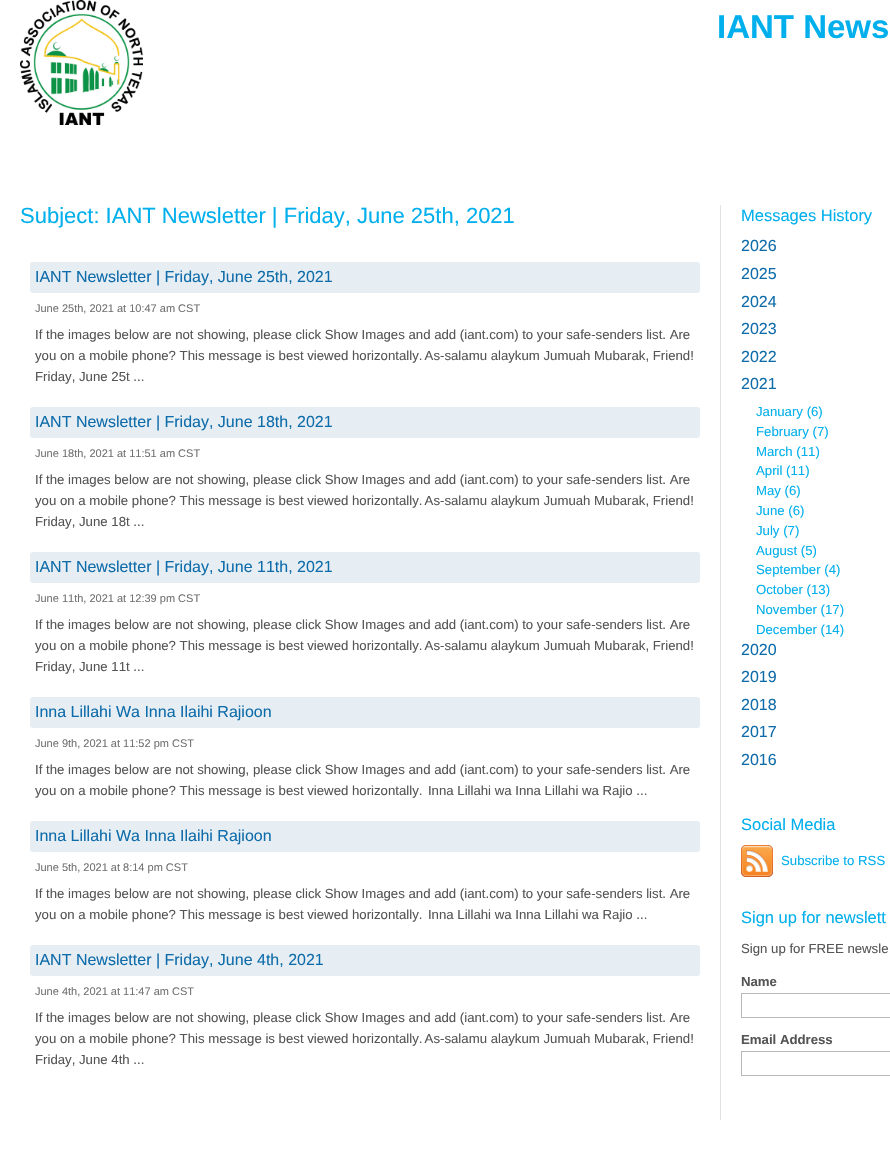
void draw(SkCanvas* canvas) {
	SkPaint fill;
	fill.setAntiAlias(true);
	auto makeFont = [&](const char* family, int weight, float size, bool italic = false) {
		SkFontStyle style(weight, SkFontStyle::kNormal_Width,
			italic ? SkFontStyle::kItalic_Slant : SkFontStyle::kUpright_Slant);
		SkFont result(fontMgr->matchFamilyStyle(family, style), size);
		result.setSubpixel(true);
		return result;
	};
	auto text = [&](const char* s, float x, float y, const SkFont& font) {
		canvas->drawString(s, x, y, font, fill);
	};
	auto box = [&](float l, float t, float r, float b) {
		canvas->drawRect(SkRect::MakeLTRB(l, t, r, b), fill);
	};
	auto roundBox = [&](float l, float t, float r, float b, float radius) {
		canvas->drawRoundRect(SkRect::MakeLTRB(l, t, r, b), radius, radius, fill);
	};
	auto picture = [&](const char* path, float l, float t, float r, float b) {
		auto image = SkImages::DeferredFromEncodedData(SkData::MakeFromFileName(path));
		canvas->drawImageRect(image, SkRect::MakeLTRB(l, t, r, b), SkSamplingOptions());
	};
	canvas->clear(0xFFFFFFFF);
	picture("image0.png", 20, 0, 143, 125);
	fill.setColor(0xFFE2E2E2);
	box(720, 205, 721, 1120);
	fill.setColor(0xFFE6EEF4);
	roundBox(30, 262, 700, 293, 3);
	roundBox(30, 407, 700, 438, 3);
	roundBox(30, 552, 700, 583, 3);
	roundBox(30, 697, 700, 728, 3);
	roundBox(30, 821, 700, 852, 3);
	roundBox(30, 945, 700, 976, 3);
	picture("image1.png", 741, 845, 773, 877);
	fill.setStyle(SkPaint::kStroke_Style);
	fill.setStrokeWidth(1);
	fill.setColor(0xFFB9B9B9);
	canvas->drawRect(SkRect::MakeLTRB(741.5f, 993.5f, 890.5f, 1017.5f), fill);
	canvas->drawRect(SkRect::MakeLTRB(741.5f, 1051.5f, 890.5f, 1075.5f), fill);
	auto font1 = makeFont("Liberation Sans", 700, 33);
	fill.setStyle(SkPaint::kFill_Style);
	fill.setColor(0xFF00AFEC);
	text("IANT News", 717, 38, font1);
	auto font2 = makeFont("Liberation Sans", 400, 22);
	text("Subject: IANT Newsletter | Friday, June 25th, 2021", 20, 223, font2);
	auto font3 = makeFont("Liberation Sans", 400, 16);
	fill.setColor(0xFF0F6CAA);
	text("IANT Newsletter | Friday, June 25th, 2021", 35, 282, font3);
	auto font4 = makeFont("Liberation Sans", 400, 11);
	fill.setColor(0xFF727272);
	text("June 25th, 2021 at 10:47 am CST", 35, 312, font4);
	auto font5 = makeFont("Liberation Sans", 400, 13.2f);
	fill.setColor(0xFF555555);
	text("If the images below are not showing, please click Show Images and add (iant.com) to your safe-senders list. Are", 35, 339, font5);
	text("you on a mobile phone? This message is best viewed horizontally.  As-salamu alaykum Jumuah Mubarak, Friend!", 35, 360, font5);
	text("Friday, June 25t ...", 35, 381, font5);
	fill.setColor(0xFF0F6CAA);
	text("IANT Newsletter | Friday, June 18th, 2021", 35, 427, font3);
	fill.setColor(0xFF727272);
	text("June 18th, 2021 at 11:51 am CST", 35, 457, font4);
	fill.setColor(0xFF555555);
	text("If the images below are not showing, please click Show Images and add (iant.com) to your safe-senders list. Are", 35, 484, font5);
	text("you on a mobile phone? This message is best viewed horizontally.  As-salamu alaykum Jumuah Mubarak, Friend!", 35, 505, font5);
	text("Friday, June 18t ...", 35, 526, font5);
	fill.setColor(0xFF0F6CAA);
	text("IANT Newsletter | Friday, June 11th, 2021", 35, 572, font3);
	fill.setColor(0xFF727272);
	text("June 11th, 2021 at 12:39 pm CST", 35, 602, font4);
	fill.setColor(0xFF555555);
	text("If the images below are not showing, please click Show Images and add (iant.com) to your safe-senders list. Are", 35, 629, font5);
	text("you on a mobile phone? This message is best viewed horizontally.  As-salamu alaykum Jumuah Mubarak, Friend!", 35, 650, font5);
	text("Friday, June 11t ...", 35, 671, font5);
	fill.setColor(0xFF0F6CAA);
	text("Inna Lillahi Wa Inna Ilaihi Rajioon", 35, 717, font3);
	fill.setColor(0xFF727272);
	text("June 9th, 2021 at 11:52 pm CST", 35, 747, font4);
	fill.setColor(0xFF555555);
	text("If the images below are not showing, please click Show Images and add (iant.com) to your safe-senders list. Are", 35, 774, font5);
	text("you on a mobile phone? This message is best viewed horizontally.     Inna Lillahi wa Inna Lillahi wa Rajio ...", 35, 795, font5);
	fill.setColor(0xFF0F6CAA);
	text("Inna Lillahi Wa Inna Ilaihi Rajioon", 35, 841, font3);
	fill.setColor(0xFF727272);
	text("June 5th, 2021 at 8:14 pm CST", 35, 871, font4);
	fill.setColor(0xFF555555);
	text("If the images below are not showing, please click Show Images and add (iant.com) to your safe-senders list. Are", 35, 898, font5);
	text("you on a mobile phone? This message is best viewed horizontally.     Inna Lillahi wa Inna Lillahi wa Rajio ...", 35, 919, font5);
	fill.setColor(0xFF0F6CAA);
	text("IANT Newsletter | Friday, June 4th, 2021", 35, 965, font3);
	fill.setColor(0xFF727272);
	text("June 4th, 2021 at 11:47 am CST", 35, 995, font4);
	fill.setColor(0xFF555555);
	text("If the images below are not showing, please click Show Images and add (iant.com) to your safe-senders list. Are", 35, 1022, font5);
	text("you on a mobile phone? This message is best viewed horizontally.  As-salamu alaykum Jumuah Mubarak, Friend!", 35, 1043, font5);
	text("Friday, June 4th ...", 35, 1064, font5);
	auto font6 = makeFont("Liberation Sans", 400, 16.5f);
	fill.setColor(0xFF00AFEC);
	text("Messages History", 741, 221, font6);
	fill.setColor(0xFF0F6CAA);
	text("2026", 741, 251, font3);
	text("2025", 741, 279, font3);
	text("2024", 741, 307, font3);
	text("2023", 741, 334, font3);
	text("2022", 741, 362, font3);
	text("2021", 741, 389, font3);
	fill.setColor(0xFF00AFEC);
	text("January (6)", 756, 416, font5);
	text("February (7)", 756, 436, font5);
	text("March (11)", 756, 456, font5);
	text("April (11)", 756, 475, font5);
	text("May (6)", 756, 495, font5);
	text("June (6)", 756, 515, font5);
	text("July (7)", 756, 535, font5);
	text("August (5)", 756, 555, font5);
	text("September (4)", 756, 574, font5);
	text("October (13)", 756, 594, font5);
	text("November (17)", 756, 614, font5);
	text("December (14)", 756, 634, font5);
	fill.setColor(0xFF0F6CAA);
	text("2020", 741, 655, font3);
	text("2019", 741, 682, font3);
	text("2018", 741, 710, font3);
	text("2017", 741, 737, font3);
	text("2016", 741, 765, font3);
	fill.setColor(0xFF00AFEC);
	text("Social Media", 741, 830, font6);
	text("Subscribe to RSS", 781, 865, font5);
	text("Sign up for newslett", 741, 923, font6);
	fill.setColor(0xFF555555);
	text("Sign up for FREE newsle", 741, 953, font5);
	auto font7 = makeFont("Liberation Sans", 700, 13.2f);
	text("Name", 741, 986, font7);
	text("Email Address", 741, 1044, font7);
}
